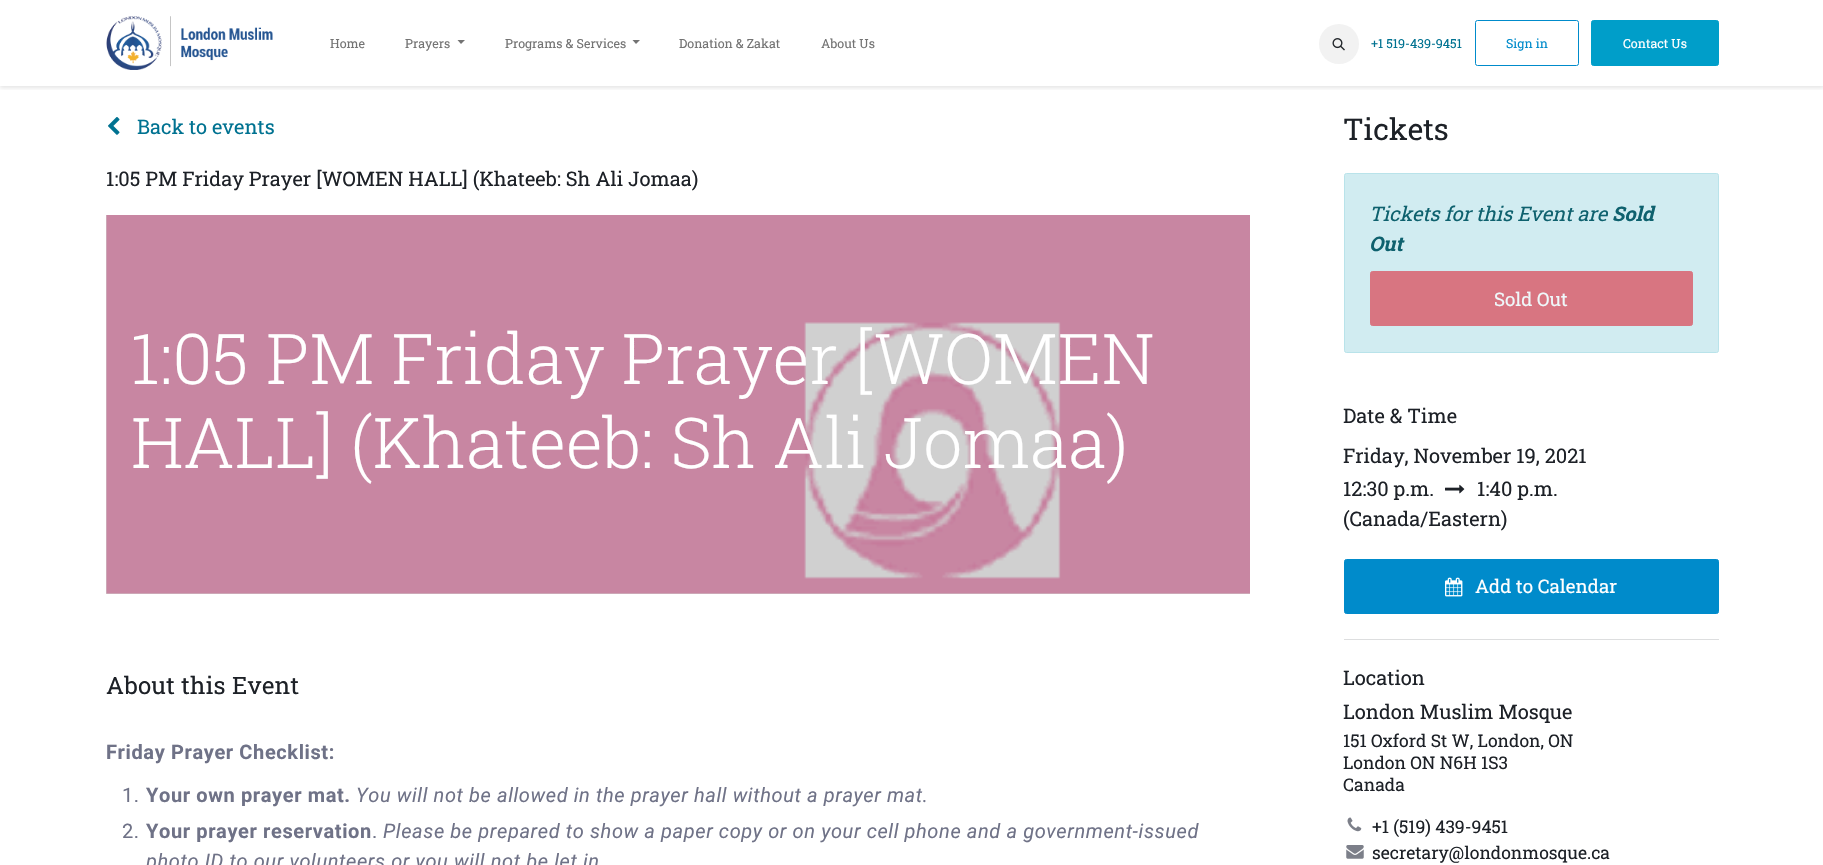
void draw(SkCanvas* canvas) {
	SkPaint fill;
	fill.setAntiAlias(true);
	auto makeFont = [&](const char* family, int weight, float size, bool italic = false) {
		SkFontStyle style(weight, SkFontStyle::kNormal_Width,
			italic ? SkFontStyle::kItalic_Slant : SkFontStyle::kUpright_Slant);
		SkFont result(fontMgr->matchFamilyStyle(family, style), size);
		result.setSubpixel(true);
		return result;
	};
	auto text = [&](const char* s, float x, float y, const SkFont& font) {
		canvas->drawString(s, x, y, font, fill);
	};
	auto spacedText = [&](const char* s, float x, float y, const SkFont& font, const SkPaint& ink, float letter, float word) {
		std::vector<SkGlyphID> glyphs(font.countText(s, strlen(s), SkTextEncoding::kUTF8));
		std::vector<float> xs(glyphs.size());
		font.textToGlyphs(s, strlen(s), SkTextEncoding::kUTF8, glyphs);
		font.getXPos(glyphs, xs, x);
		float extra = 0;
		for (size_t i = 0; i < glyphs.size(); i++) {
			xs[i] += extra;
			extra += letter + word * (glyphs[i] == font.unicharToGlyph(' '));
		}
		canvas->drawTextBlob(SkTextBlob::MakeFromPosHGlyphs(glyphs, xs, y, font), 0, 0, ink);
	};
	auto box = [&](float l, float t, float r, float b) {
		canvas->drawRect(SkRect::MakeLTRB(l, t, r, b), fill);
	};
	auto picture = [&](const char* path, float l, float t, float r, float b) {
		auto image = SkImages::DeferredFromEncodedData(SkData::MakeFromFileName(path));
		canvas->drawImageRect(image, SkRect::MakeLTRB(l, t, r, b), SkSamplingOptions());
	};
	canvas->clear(0xFFFFFFFF);
	fill.setColor(0xFFD1D1D1);
	box(106, 215, 1250, 594);
	canvas->save();
	canvas->clipRect(SkRect::MakeLTRB(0, 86, 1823, 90));
	fill.setColor(0x1A000000);
	fill.setMaskFilter(SkMaskFilter::MakeBlur(kNormal_SkBlurStyle, 2));
	canvas->drawRect(SkRect::MakeLTRB(0, 1, 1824, 88), fill);
	fill.setMaskFilter(nullptr);
	canvas->restore();
	picture("image0.png", 106, 16, 273, 70);
	fill.setColor(0xFF737373);
	canvas->drawPath(SkPathBuilder().moveTo(457.5f, 40).lineTo(465, 40).lineTo(461, 44).close().detach(), fill);
	canvas->drawPath(SkPathBuilder().moveTo(632.5f, 40).lineTo(640, 40).lineTo(636, 44).close().detach(), fill);
	fill.setColor(0xFFF2F2F2);
	canvas->drawCircle(1339, 44, 20, fill);
	picture("image1.png", 1332, 38, 1345, 51);
	fill.setStyle(SkPaint::kStroke_Style);
	fill.setStrokeWidth(1);
	fill.setColor(0xFF008BCB);
	canvas->drawRoundRect(SkRect::MakeLTRB(1475.5f, 20.5f, 1578.5f, 65.5f), 2, 2, fill);
	fill.setStyle(SkPaint::kFill_Style);
	fill.setColor(0xFF009EC9);
	canvas->drawRoundRect(SkRect::MakeLTRB(1591.5f, 20.5f, 1718.5f, 65.5f), 2, 2, fill);
	fill.setStyle(SkPaint::kStroke_Style);
	canvas->drawRoundRect(SkRect::MakeLTRB(1591.5f, 20.5f, 1718.5f, 65.5f), 2, 2, fill);
	picture("image2.png", 108, 117, 120, 135);
	picture("image3.png", 106, 215, 1250, 594);
	fill.setStyle(SkPaint::kFill_Style);
	fill.setColor(0xFFD1ECF1);
	canvas->drawRoundRect(SkRect::MakeLTRB(1344.5f, 173.5f, 1718.5f, 352.5f), 2, 2, fill);
	fill.setStyle(SkPaint::kStroke_Style);
	fill.setColor(0xFFB9E3EA);
	canvas->drawRoundRect(SkRect::MakeLTRB(1344.5f, 173.5f, 1718.5f, 352.5f), 2, 2, fill);
	fill.setStyle(SkPaint::kFill_Style);
	fill.setColor(0xFFD87581);
	canvas->drawRoundRect(SkRect::MakeLTRB(1370.5f, 271.5f, 1692.5f, 325.5f), 2, 2, fill);
	fill.setStyle(SkPaint::kStroke_Style);
	canvas->drawRoundRect(SkRect::MakeLTRB(1370.5f, 271.5f, 1692.5f, 325.5f), 2, 2, fill);
	fill.setStyle(SkPaint::kFill_Style);
	fill.setColor(0xFFDDDEDF);
	box(1344, 639, 1719, 640);
	picture("image4.png", 1445, 484, 1465, 494);
	fill.setColor(0xFF008BCB);
	canvas->drawRoundRect(SkRect::MakeLTRB(1344.5f, 559.5f, 1718.5f, 613.5f), 2, 2, fill);
	fill.setStyle(SkPaint::kStroke_Style);
	canvas->drawRoundRect(SkRect::MakeLTRB(1344.5f, 559.5f, 1718.5f, 613.5f), 2, 2, fill);
	picture("image5.png", 1445, 577, 1463, 597);
	picture("image6.png", 1347, 817, 1362, 832);
	picture("image7.png", 1346, 845, 1364, 859);
	auto font1 = makeFont("Roboto Slab", 400, 12.5f);
	fill.setStyle(SkPaint::kFill_Style);
	fill.setColor(0xFF737373);
	text("Home", 330, 48, font1);
	text("Prayers", 405, 48, font1);
	text("Programs & Services", 505, 48, font1);
	text("Donation & Zakat", 679, 48, font1);
	text("About Us", 821, 48, font1);
	fill.setColor(0xFF007291);
	text("+1 519-439-9451", 1371, 48, font1);
	fill.setColor(0xFF008BCB);
	text("Sign in", 1506, 48, font1);
	fill.setColor(0xFFFFFFFF);
	text("Contact Us", 1623, 48, font1);
	auto font2 = makeFont("Roboto Slab", 400, 20);
	fill.setColor(0xFF007291);
	text("Back to events", 137, 134, font2);
	fill.setColor(0xFF1D2127);
	text("1:05 PM Friday Prayer [WOMEN HALL] (Khateeb: Sh Ali Jomaa)", 106, 186, font2);
	auto font3 = makeFont("Roboto Slab", 300, 70);
	fill.setColor(0xFFFFFFFF);
	text("1:05 PM Friday Prayer [WOMEN", 131, 384, font3);
	text("HALL] (Khateeb: Sh Ali Jomaa)", 131, 468, font3);
	auto font4 = makeFont("Roboto Slab", 400, 24);
	fill.setColor(0xFF1D2127);
	spacedText("About this Event", 106, 694, font4, fill, 0.25f, 0);
	auto font5 = makeFont("Roboto", 700, 20);
	fill.setColor(0xFF6F7287);
	spacedText("Friday Prayer Checklist:", 106, 759, font5, fill, 0.62f, 0);
	auto font6 = makeFont("Roboto", 400, 20);
	spacedText("1.", 122, 802, font6, fill, 0.62f, 0);
	spacedText("Your own prayer mat.", 146, 802, font5, fill, 0.62f, 0);
	auto font7 = makeFont("Roboto", 400, 20, true);
	spacedText("You will not be allowed in the prayer hall without a prayer mat.", 356, 802, font7, fill, 0.62f, 0);
	spacedText("2.", 122, 838, font6, fill, 0.62f, 0);
	spacedText("Your prayer reservation", 146, 838, font5, fill, 0.62f, 0);
	spacedText(".", 372, 838, font6, fill, 0.62f, 0);
	spacedText("Please be prepared to show a paper copy or on your cell phone and a government-issued", 383, 838, font7, fill, 0.62f, 0);
	spacedText("photo ID to our volunteers or you will not be let in", 146, 868, font7, fill, 0.62f, 0);
	auto font8 = makeFont("Roboto Slab", 400, 30);
	fill.setColor(0xFF1D2127);
	text("Tickets", 1343, 140, font8);
	auto font9 = makeFont("Roboto Slab", 400, 20, true);
	fill.setColor(0xFF0E616E);
	text("Tickets for this Event are", 1369, 221, font9);
	auto font10 = makeFont("Roboto Slab", 700, 20, true);
	text("Sold", 1612, 221, font10);
	text("Out", 1369, 251, font10);
	auto font11 = makeFont("Roboto Slab", 400, 18.75f);
	fill.setColor(0xFFEFF8FA);
	text("Sold Out", 1494, 306, font11);
	fill.setColor(0xFF1D2127);
	text("Date & Time", 1343, 423, font2);
	text("Friday, November 19, 2021", 1343, 463, font2);
	text("12:30 p.m.", 1343, 496, font2);
	text("1:40 p.m.", 1477, 496, font2);
	text("(Canada/Eastern)", 1343, 526, font2);
	fill.setColor(0xFFFFFFFF);
	text("Add to Calendar", 1475, 593, font11);
	fill.setColor(0xFF1D2127);
	text("Location", 1343, 685, font2);
	text("London Muslim Mosque", 1343, 719, font2);
	auto font12 = makeFont("Roboto Slab", 400, 17.5f);
	text("151 Oxford St W, London, ON", 1343, 747, font12);
	text("London ON N6H 1S3", 1343, 769, font12);
	text("Canada", 1343, 791, font12);
	text("+1 (519) 439-9451", 1372, 833, font12);
	text("secretary@londonmosque.ca", 1372, 859, font12);
}
